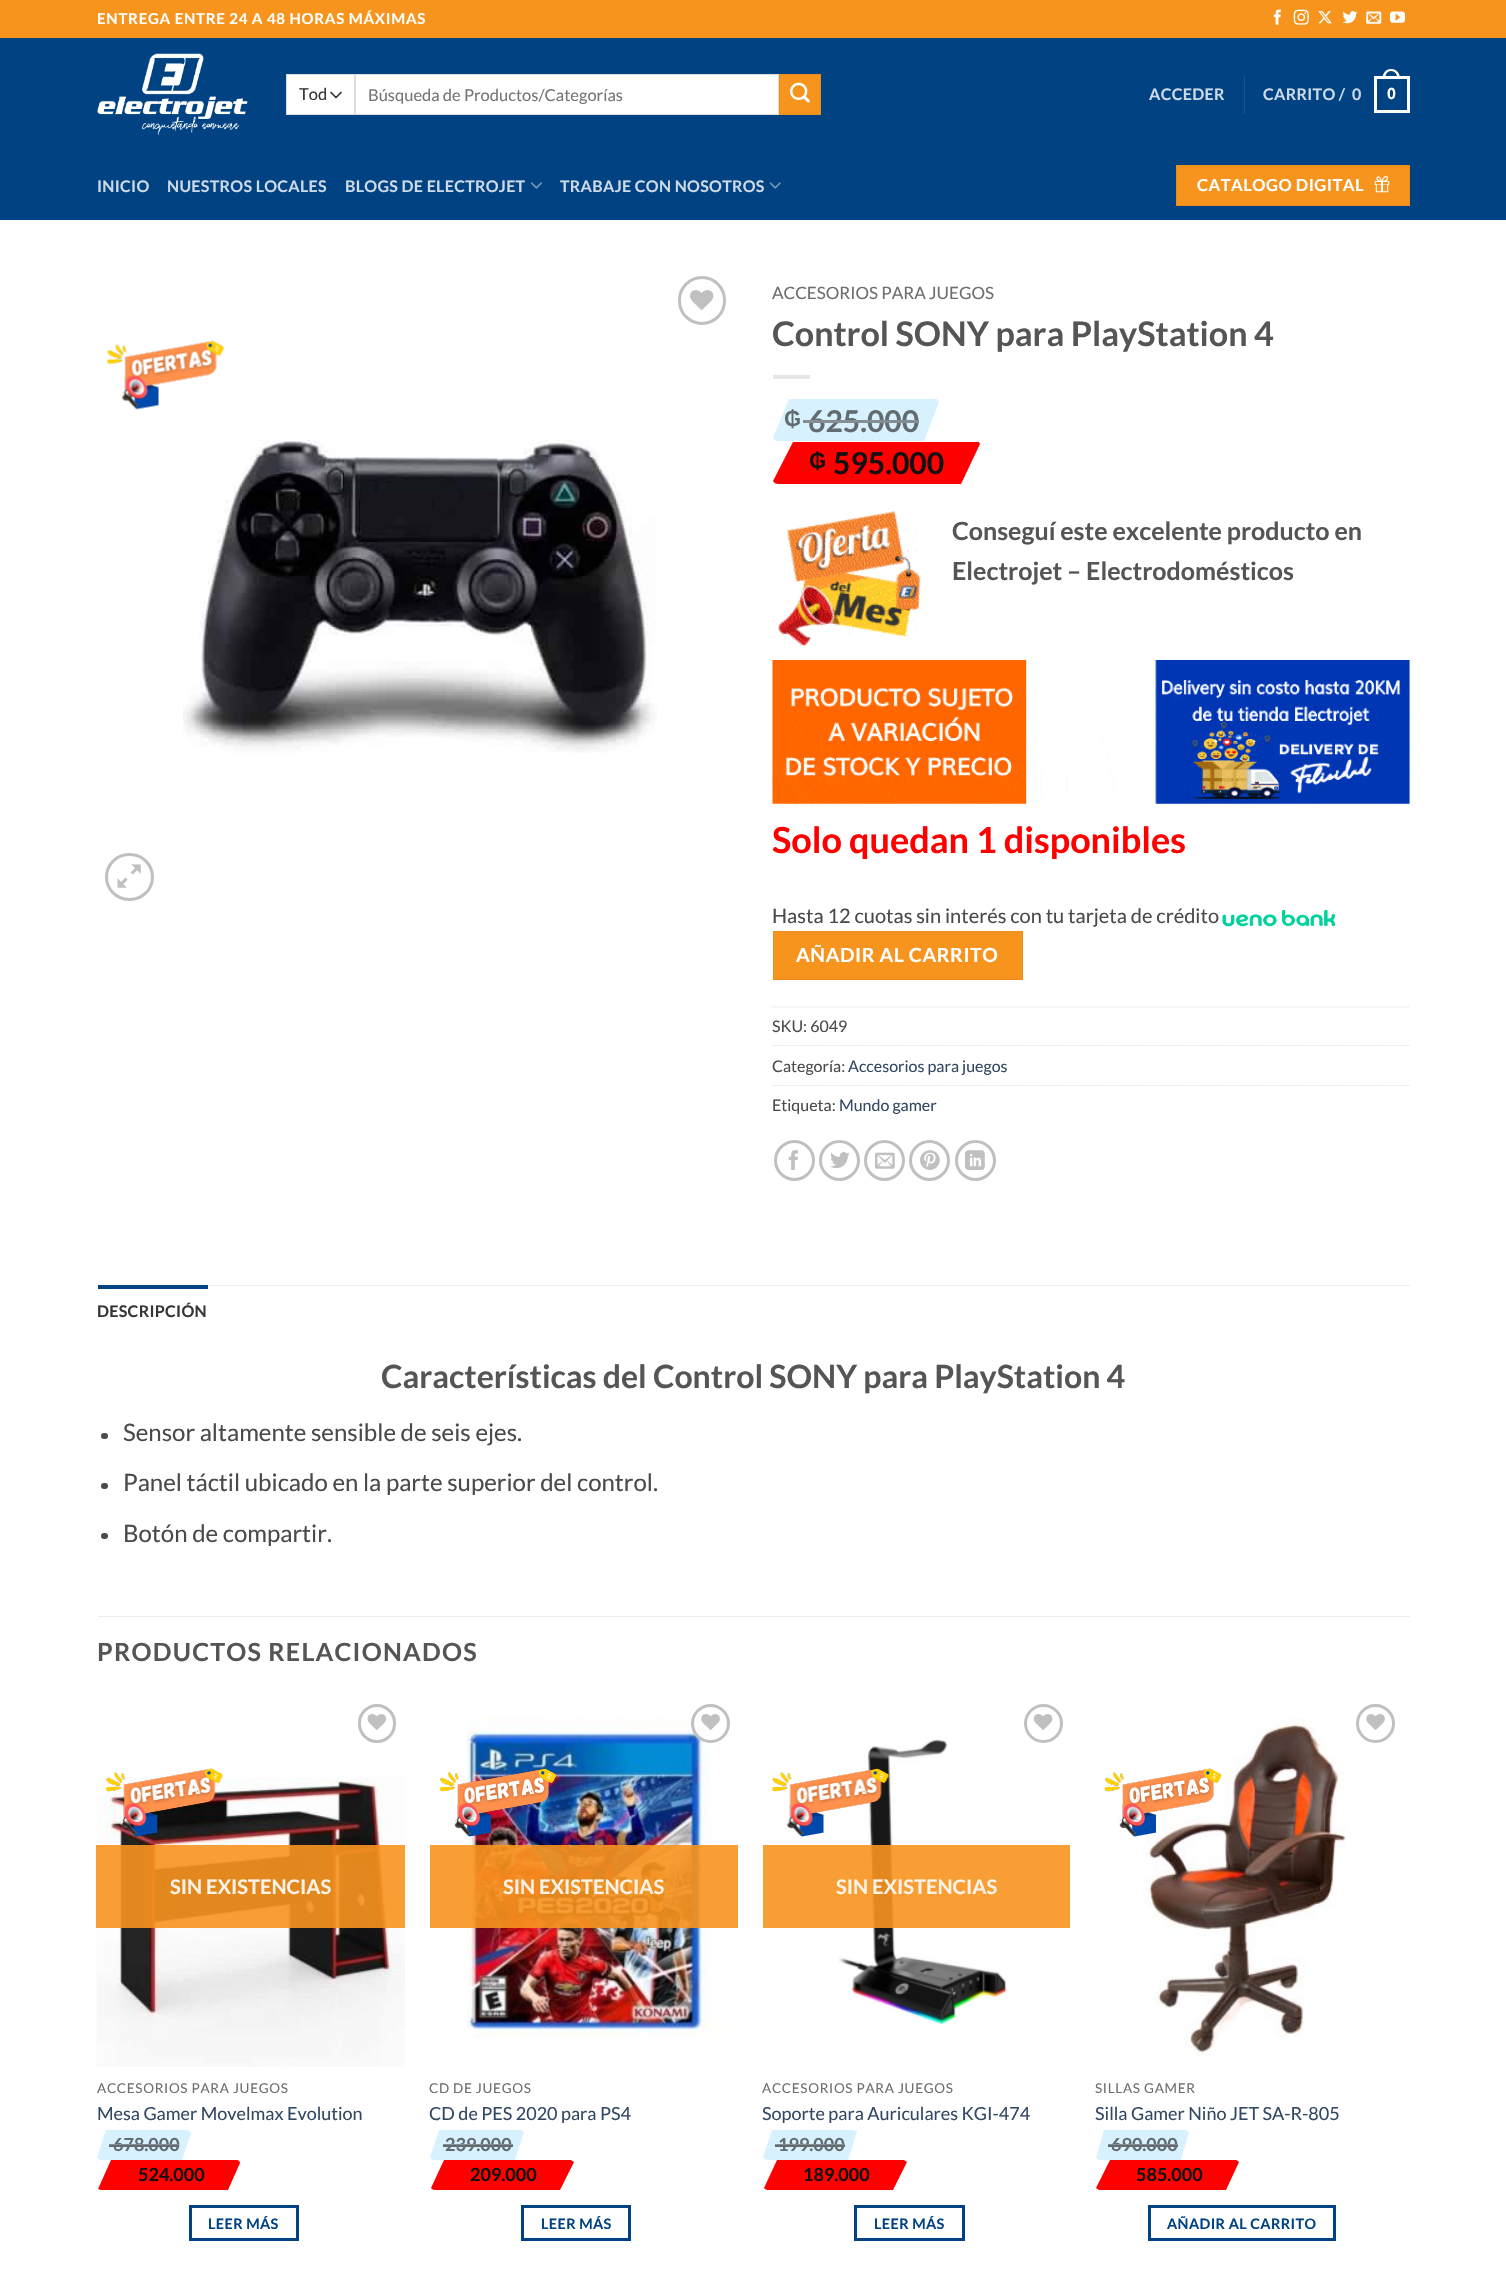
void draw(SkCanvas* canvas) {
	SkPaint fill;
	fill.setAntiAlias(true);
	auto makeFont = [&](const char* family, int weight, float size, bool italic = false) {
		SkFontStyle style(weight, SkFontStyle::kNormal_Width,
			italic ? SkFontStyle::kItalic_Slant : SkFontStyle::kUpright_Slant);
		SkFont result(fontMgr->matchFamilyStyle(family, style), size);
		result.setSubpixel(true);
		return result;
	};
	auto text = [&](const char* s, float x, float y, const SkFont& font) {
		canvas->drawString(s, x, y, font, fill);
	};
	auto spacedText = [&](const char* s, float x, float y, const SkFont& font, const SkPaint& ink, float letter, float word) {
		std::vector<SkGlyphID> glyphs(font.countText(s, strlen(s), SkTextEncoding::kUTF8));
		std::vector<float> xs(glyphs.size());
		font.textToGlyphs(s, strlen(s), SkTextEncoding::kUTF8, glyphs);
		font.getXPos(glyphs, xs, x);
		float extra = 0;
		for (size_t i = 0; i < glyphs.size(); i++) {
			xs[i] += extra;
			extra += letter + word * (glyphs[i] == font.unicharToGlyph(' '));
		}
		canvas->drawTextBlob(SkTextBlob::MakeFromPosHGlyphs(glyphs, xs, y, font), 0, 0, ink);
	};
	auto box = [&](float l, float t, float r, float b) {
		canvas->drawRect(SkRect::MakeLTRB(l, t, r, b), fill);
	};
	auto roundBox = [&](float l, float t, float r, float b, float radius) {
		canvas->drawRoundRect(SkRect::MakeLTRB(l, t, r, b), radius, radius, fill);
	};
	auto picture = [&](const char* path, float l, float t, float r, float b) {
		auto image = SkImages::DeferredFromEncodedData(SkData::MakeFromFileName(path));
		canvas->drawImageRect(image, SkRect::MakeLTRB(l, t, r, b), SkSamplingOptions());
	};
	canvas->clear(0xFFFFFFFF);
	fill.setColor(0xFFF7941E);
	box(0, 0, 1506, 38);
	picture("image0.png", 1273, 9, 1281, 25);
	picture("image1.png", 1293, 9, 1309, 25);
	picture("image2.png", 1318, 11, 1332, 24);
	picture("image3.png", 1342, 11, 1358, 24);
	picture("image4.png", 1366, 11, 1382, 24);
	picture("image5.png", 1390, 11, 1405, 23);
	fill.setColor(0xFF004282);
	box(0, 38, 1506, 220);
	picture("image6.png", 97, 53, 248, 135);
	fill.setColor(0xFFFFFFFF);
	box(287, 75, 354, 114);
	fill.setStyle(SkPaint::kStroke_Style);
	fill.setStrokeWidth(1.7f);
	fill.setStrokeCap(SkPaint::kRound_Cap);
	fill.setStrokeJoin(SkPaint::kRound_Join);
	fill.setColor(0xFF333333);
	canvas->drawPath(SkPathBuilder().moveTo(331, 92.5f).lineTo(336, 97.5f).lineTo(341, 92.5f).detach(), fill);
	fill.setStrokeWidth(1);
	fill.setStrokeCap(SkPaint::kButt_Cap);
	fill.setStrokeJoin(SkPaint::kMiter_Join);
	fill.setColor(0xFFDDDDDD);
	canvas->drawRect(SkRect::MakeLTRB(286.5f, 74.5f, 354.5f, 114.5f), fill);
	fill.setStyle(SkPaint::kFill_Style);
	fill.setColor(0xFFFFFFFF);
	canvas->drawRect(SkRect::MakeLTRB(355.5f, 74.5f, 778.5f, 114.5f), fill);
	fill.setStyle(SkPaint::kStroke_Style);
	fill.setColor(0xFFDDDDDD);
	canvas->drawRect(SkRect::MakeLTRB(355.5f, 74.5f, 778.5f, 114.5f), fill);
	fill.setStyle(SkPaint::kFill_Style);
	fill.setColor(0xFFF7941E);
	canvas->drawRect(SkRect::MakeLTRB(779.5f, 74.5f, 820.5f, 114.5f), fill);
	fill.setStyle(SkPaint::kStroke_Style);
	fill.setColor(0xFFEB8D1D);
	canvas->drawRect(SkRect::MakeLTRB(779.5f, 74.5f, 820.5f, 114.5f), fill);
	picture("image7.png", 790, 82, 810, 103);
	fill.setStyle(SkPaint::kFill_Style);
	fill.setColor(0xFF1A558F);
	box(1244, 76, 1245, 114);
	fill.setStyle(SkPaint::kStroke_Style);
	fill.setStrokeWidth(3);
	fill.setColor(0xFFFFFFFF);
	canvas->drawRect(SkRect::MakeLTRB(1375.5f, 77.5f, 1408.5f, 111.5f), fill);
	fill.setStyle(SkPaint::kFill_Style);
	canvas->drawPath(SkPathBuilder(SkPathFillType::kEvenOdd).moveTo(1391, 69).cubicTo(1397, 69, 1400, 73.5f, 1400, 79).lineTo(1382.5f, 79).cubicTo(1382.5f, 73.5f, 1385.5f, 69, 1391, 69).close().moveTo(1391, 71).cubicTo(1395.5f, 71, 1397.5f, 75, 1397.5f, 79).lineTo(1385, 79).cubicTo(1385, 75, 1387, 71, 1391, 71).close().detach(), fill);
	picture("image8.png", 531, 182, 542, 189);
	picture("image9.png", 769, 182, 781, 189);
	fill.setColor(0xFFF7941E);
	canvas->drawRect(SkRect::MakeLTRB(1176.5f, 165.5f, 1409.5f, 205.5f), fill);
	fill.setStyle(SkPaint::kStroke_Style);
	fill.setStrokeWidth(1);
	fill.setColor(0xFFEB8D1D);
	canvas->drawRect(SkRect::MakeLTRB(1176.5f, 165.5f, 1409.5f, 205.5f), fill);
	picture("image10.png", 1374, 176, 1390, 193);
	fill.setStrokeWidth(3);
	fill.setColor(0xFFC0C0C0);
	canvas->drawRoundRect(SkRect::MakeLTRB(679.5f, 277.5f, 724.5f, 323.5f), 22.5f, 22.5f, fill);
	picture("image11.png", 690, 290, 714, 310);
	picture("image12.png", 106, 340, 225, 410);
	picture("image13.png", 183, 440, 657, 753);
	canvas->drawRoundRect(SkRect::MakeLTRB(106.5f, 854.5f, 152.5f, 899.5f), 22.5f, 22.5f, fill);
	picture("image14.png", 117, 864, 141, 888);
	fill.setStyle(SkPaint::kFill_Style);
	fill.setColor(0xFFE6E6E6);
	box(773, 375, 810, 379);
	fill.setColor(0xFFD8F1FF);
	canvas->drawPath(SkPathBuilder().moveTo(789, 399).lineTo(937, 399).lineTo(939, 402).lineTo(924, 441).lineTo(778, 441).cubicTo(776, 441, 774, 440, 773, 438).close().detach(), fill);
	fill.setColor(0xFFFF0000);
	canvas->drawPath(SkPathBuilder().moveTo(793, 442).lineTo(979, 442).lineTo(980, 444).lineTo(961, 484).lineTo(778, 484).cubicTo(776, 484, 774, 483, 773, 481).close().detach(), fill);
	picture("image15.png", 778, 511, 921, 647);
	picture("image16.png", 772, 660, 1410, 804);
	picture("image17.png", 1222, 910, 1335, 927);
	fill.setColor(0xFFF7941E);
	canvas->drawRect(SkRect::MakeLTRB(773.5f, 931.5f, 1022.5f, 979.5f), fill);
	fill.setStyle(SkPaint::kStroke_Style);
	fill.setStrokeWidth(1);
	fill.setColor(0xFFEB8D1D);
	canvas->drawRect(SkRect::MakeLTRB(773.5f, 931.5f, 1022.5f, 979.5f), fill);
	fill.setStrokeWidth(1.2f);
	fill.setColor(0xFFDDDDDD);
	fill.setPathEffect(SkDashPathEffect::Make({{1.25f, 1.25f}}, 0));
	canvas->drawPath(SkPathBuilder().moveTo(772.5f, 1007).lineTo(1410, 1007).detach(), fill);
	fill.setPathEffect(nullptr);
	fill.setPathEffect(SkDashPathEffect::Make({{1.25f, 1.25f}}, 0));
	canvas->drawPath(SkPathBuilder().moveTo(772.5f, 1045.5f).lineTo(1410, 1045.5f).detach(), fill);
	fill.setPathEffect(nullptr);
	fill.setPathEffect(SkDashPathEffect::Make({{1.25f, 1.25f}}, 0));
	canvas->drawPath(SkPathBuilder().moveTo(772.5f, 1085.5f).lineTo(1410, 1085.5f).detach(), fill);
	fill.setPathEffect(nullptr);
	fill.setStrokeWidth(3);
	fill.setColor(0xFFC0C0C0);
	canvas->drawCircle(794.5f, 1160.5f, 19, fill);
	picture("image18.png", 788, 1150, 798, 1170);
	canvas->drawCircle(839.5f, 1160.5f, 19, fill);
	picture("image19.png", 830, 1152, 850, 1169);
	canvas->drawCircle(884.5f, 1160.5f, 19, fill);
	picture("image20.png", 875, 1152, 895, 1169);
	canvas->drawCircle(929.5f, 1160.5f, 19, fill);
	picture("image21.png", 920, 1150, 940, 1170);
	canvas->drawCircle(975.5f, 1160.5f, 19, fill);
	picture("image22.png", 965, 1150, 985, 1170);
	fill.setStyle(SkPaint::kFill_Style);
	fill.setColor(0xFFECECEC);
	box(208, 1285, 1410, 1286);
	fill.setColor(0xFF004282);
	box(98, 1285, 208, 1289);
	fill.setColor(0xFF4A4A4A);
	roundBox(101, 1433, 108, 1439, 3);
	roundBox(101, 1483, 108, 1489, 3);
	roundBox(101, 1533, 108, 1539, 3);
	fill.setColor(0xFFECECEC);
	box(98, 1616, 1410, 1617);
	picture("image25.png", 96, 1777, 405, 2067);
	picture("image23.png", 105, 1768, 224, 1837);
	fill.setStyle(SkPaint::kStroke_Style);
	fill.setColor(0xFFC0C0C0);
	canvas->drawRoundRect(SkRect::MakeLTRB(359.5f, 1705.5f, 394.5f, 1741.5f), 17.5f, 17.5f, fill);
	picture("image24.png", 367, 1714, 387, 1730);
	fill.setStyle(SkPaint::kFill_Style);
	fill.setColor(0xE6F7941E);
	box(96, 1845, 405, 1928);
	fill.setColor(0xFFD8F1FF);
	canvas->drawPath(SkPathBuilder().moveTo(97, 2158).lineTo(106, 2130).lineTo(186, 2130).cubicTo(188, 2130, 190, 2131, 191, 2133).lineTo(182, 2160).lineTo(100, 2160).close().detach(), fill);
	fill.setColor(0xFF616B70);
	box(109, 2145, 179, 2147);
	fill.setColor(0xFFFF0000);
	canvas->drawPath(SkPathBuilder().moveTo(111, 2160).lineTo(237, 2160).cubicTo(238, 2160, 240, 2161, 240, 2163).lineTo(228, 2190).lineTo(101, 2190).lineTo(98, 2189).close().detach(), fill);
	fill.setStyle(SkPaint::kStroke_Style);
	fill.setColor(0xFF004282);
	canvas->drawRect(SkRect::MakeLTRB(190.5f, 2206.5f, 297.5f, 2239.5f), fill);
	picture("image28.png", 466, 1717, 737, 2038);
	picture("image26.png", 439, 1768, 557, 1837);
	fill.setColor(0xFFC0C0C0);
	canvas->drawCircle(710.5f, 1723.5f, 18, fill);
	picture("image27.png", 701, 1714, 720, 1730);
	fill.setStyle(SkPaint::kFill_Style);
	fill.setColor(0xE6F7941E);
	box(430, 1845, 738, 1928);
	fill.setColor(0xFFD8F1FF);
	canvas->drawPath(SkPathBuilder().moveTo(430, 2157).lineTo(439, 2130).lineTo(521, 2130).lineTo(524, 2132).lineTo(515, 2160).lineTo(435, 2160).cubicTo(433, 2160, 431, 2159, 430, 2157).close().detach(), fill);
	fill.setColor(0xFF616B70);
	box(443, 2145, 513, 2147);
	fill.setColor(0xFFFF0000);
	canvas->drawPath(SkPathBuilder().moveTo(444, 2160).lineTo(571, 2160).lineTo(574, 2162).lineTo(560, 2190).lineTo(435, 2190).cubicTo(433, 2190, 432, 2189, 431, 2188).close().detach(), fill);
	fill.setStyle(SkPaint::kStroke_Style);
	fill.setColor(0xFF004282);
	canvas->drawRect(SkRect::MakeLTRB(522.5f, 2206.5f, 629.5f, 2239.5f), fill);
	picture("image31.png", 838, 1739, 1007, 2025);
	picture("image29.png", 771, 1768, 890, 1837);
	fill.setColor(0xFFC0C0C0);
	canvas->drawCircle(1043.5f, 1723.5f, 18, fill);
	picture("image30.png", 1033, 1714, 1053, 1730);
	fill.setStyle(SkPaint::kFill_Style);
	fill.setColor(0xE6F7941E);
	box(763, 1845, 1070, 1928);
	fill.setColor(0xFFD8F1FF);
	canvas->drawPath(SkPathBuilder().moveTo(763, 2157).lineTo(772, 2130).lineTo(854, 2130).lineTo(857, 2132).lineTo(848, 2160).lineTo(768, 2160).cubicTo(766, 2160, 764, 2159, 763, 2157).close().detach(), fill);
	fill.setColor(0xFF616B70);
	box(775, 2145, 845, 2147);
	fill.setColor(0xFFFF0000);
	canvas->drawPath(SkPathBuilder().moveTo(777, 2160).lineTo(904, 2160).lineTo(907, 2162).lineTo(893, 2190).lineTo(768, 2190).cubicTo(766, 2190, 765, 2189, 764, 2188).close().detach(), fill);
	fill.setStyle(SkPaint::kStroke_Style);
	fill.setColor(0xFF004282);
	canvas->drawRect(SkRect::MakeLTRB(855.5f, 2206.5f, 963.5f, 2239.5f), fill);
	picture("image33.png", 1145, 1718, 1346, 2057);
	picture("image32.png", 1104, 1768, 1222, 1837);
	fill.setColor(0xFFC0C0C0);
	canvas->drawCircle(1375.5f, 1723.5f, 18, fill);
	picture("image34.png", 1366, 1714, 1385, 1730);
	fill.setStyle(SkPaint::kFill_Style);
	fill.setColor(0xFFD8F1FF);
	canvas->drawPath(SkPathBuilder().moveTo(1096, 2158).lineTo(1104, 2130).lineTo(1185, 2130).cubicTo(1187, 2130, 1188, 2131, 1189, 2132).lineTo(1181, 2160).lineTo(1099, 2160).close().detach(), fill);
	fill.setColor(0xFF616B70);
	box(1108, 2145, 1178, 2147);
	fill.setColor(0xFFFF0000);
	canvas->drawPath(SkPathBuilder().moveTo(1110, 2160).lineTo(1236, 2160).cubicTo(1237, 2160, 1238, 2161, 1239, 2162).lineTo(1226, 2190).lineTo(1099, 2190).lineTo(1096, 2188).close().detach(), fill);
	fill.setStyle(SkPaint::kStroke_Style);
	fill.setColor(0xFF004282);
	canvas->drawRect(SkRect::MakeLTRB(1149.5f, 2206.5f, 1334.5f, 2239.5f), fill);
	auto font1 = makeFont("Lato", 700, 15);
	fill.setStyle(SkPaint::kFill_Style);
	fill.setColor(0xFFFFFFFF);
	spacedText("ENTREGA ENTRE 24 A 48 HORAS MÁXIMAS", 97, 24, font1, fill, 0.75f, 0);
	auto font2 = makeFont("Lato", 400, 16.5f);
	fill.setColor(0xFF363636);
	text("Tod", 299, 100, font2);
	fill.setColor(0xFF757575);
	text("Búsqueda de Productos/Categorías", 368, 101, font2);
	auto font3 = makeFont("Lato", 700, 16);
	fill.setColor(0xFFCCD9E6);
	spacedText("ACCEDER", 1149, 100, font3, fill, 0.3f, 0);
	spacedText("CARRITO /", 1263, 100, font3, fill, 0.3f, 0);
	spacedText("0", 1352, 100, font3, fill, 0.3f, 0);
	auto font4 = makeFont("Liberation Sans", 700, 16);
	fill.setColor(0xFFFFFFFF);
	spacedText("0", 1387, 99, font4, fill, 0.3f, 0);
	fill.setColor(0xFFCCD9E6);
	spacedText("INICIO", 97, 192, font3, fill, 0.3f, 0);
	spacedText("NUESTROS LOCALES", 167, 192, font3, fill, 0.3f, 0);
	spacedText("BLOGS DE ELECTROJET", 345, 192, font3, fill, 0.3f, 0);
	spacedText("TRABAJE CON NOSOTROS", 560, 192, font3, fill, 0.3f, 0);
	auto font5 = makeFont("Lato", 700, 16.5f);
	fill.setColor(0xFFFFFFFF);
	spacedText("CATALOGO DIGITAL", 1197, 191, font5, fill, 0.5f, 0);
	auto font6 = makeFont("Lato", 400, 17);
	fill.setColor(0xFF6E6E6E);
	text("ACCESORIOS PARA JUEGOS", 772, 299, font6);
	auto font7 = makeFont("Lato", 700, 34);
	fill.setColor(0xFF555555);
	text("Control SONY para PlayStation 4", 772, 346, font7);
	auto font8 = makeFont("Liberation Sans", 700, 22);
	fill.setColor(0xFF616B70);
	text("₲", 784, 426, font8);
	auto font9 = makeFont("Lato", 700, 30);
	text("625.000", 808, 432, font9);
	fill.setColor(0xFF838D92);
	box(803, 420, 919, 423);
	fill.setColor(0xFF111111);
	text("₲", 809, 468, font8);
	text("595.000", 833, 474, font9);
	auto font10 = makeFont("Lato", 700, 25);
	fill.setColor(0xFF555555);
	text("Conseguí este excelente producto en", 952, 540, font10);
	text("Electrojet – Electrodomésticos", 952, 580, font10);
	auto font11 = makeFont("Lato", 700, 36);
	fill.setColor(0xFFFF0000);
	text("Solo quedan 1 disponibles", 772, 853, font11);
	auto font12 = makeFont("Lato", 400, 20);
	fill.setColor(0xFF4A4A4A);
	text("Hasta 12 cuotas sin interés con tu tarjeta de crédito", 772, 923, font12);
	auto font13 = makeFont("Lato", 700, 19.4f);
	fill.setColor(0xFFFFFFFF);
	spacedText("AÑADIR AL CARRITO", 796, 962, font13, fill, 0.6f, 0);
	auto font14 = makeFont("Lato", 400, 16);
	fill.setColor(0xFF4A4A4A);
	text("SKU: 6049", 772, 1032, font14);
	text("Categoría:", 772, 1072, font14);
	fill.setColor(0xFF334862);
	text("Accesorios para juegos", 848, 1072, font14);
	fill.setColor(0xFF4A4A4A);
	text("Etiqueta:", 772, 1111, font14);
	fill.setColor(0xFF334862);
	text("Mundo gamer", 839, 1111, font14);
	fill.setColor(0xFF363636);
	spacedText("DESCRIPCIÓN", 97, 1317, font3, fill, 0.3f, 0);
	auto font15 = makeFont("Lato", 700, 32);
	fill.setColor(0xFF555555);
	text("Características del Control SONY para PlayStation 4", 381, 1388, font15);
	auto font16 = makeFont("Lato", 400, 24);
	fill.setColor(0xFF4A4A4A);
	text("Sensor altamente sensible de seis ejes.", 123, 1441, font16);
	text("Panel táctil ubicado en la parte superior del control.", 123, 1491, font16);
	text("Botón de compartir.", 123, 1542, font16);
	fill.setColor(0xFF555555);
	spacedText("PRODUCTOS RELACIONADOS", 97, 1661, font10, fill, 1.25f, 0);
	auto font17 = makeFont("Lato", 700, 20);
	fill.setColor(0xFFFCF3E8);
	text("SIN EXISTENCIAS", 170, 1894, font17);
	auto font18 = makeFont("Lato", 400, 13.5f);
	fill.setColor(0xFF6E6E6E);
	spacedText("ACCESORIOS PARA JUEGOS", 97, 2093, font18, fill, 0.7f, 0);
	auto font19 = makeFont("Lato", 400, 18);
	fill.setColor(0xFF334862);
	text("Mesa Gamer Movelmax Evolution", 97, 2120, font19);
	auto font20 = makeFont("Lato", 700, 18);
	fill.setColor(0xFF616B70);
	text("678.000", 113, 2151, font20);
	fill.setColor(0xFF838D92);
	box(109, 2144, 179, 2145);
	fill.setColor(0xFF111111);
	text("524.000", 138, 2181, font20);
	auto font21 = makeFont("Lato", 700, 14.4f);
	fill.setColor(0xFF004282);
	spacedText("LEER MÁS", 208, 2229, font21, fill, 0.4f, 0);
	fill.setColor(0xFFFCF3E8);
	text("SIN EXISTENCIAS", 503, 1894, font17);
	fill.setColor(0xFF6E6E6E);
	spacedText("CD DE JUEGOS", 429, 2093, font18, fill, 0.7f, 0);
	fill.setColor(0xFF334862);
	text("CD de PES 2020 para PS4", 429, 2120, font19);
	fill.setColor(0xFF616B70);
	text("239.000", 445, 2151, font20);
	fill.setColor(0xFF838D92);
	box(443, 2144, 513, 2145);
	fill.setColor(0xFF111111);
	text("209.000", 470, 2181, font20);
	fill.setColor(0xFF004282);
	spacedText("LEER MÁS", 541, 2229, font21, fill, 0.4f, 0);
	fill.setColor(0xFFFCF3E8);
	text("SIN EXISTENCIAS", 836, 1894, font17);
	fill.setColor(0xFF6E6E6E);
	spacedText("ACCESORIOS PARA JUEGOS", 762, 2093, font18, fill, 0.7f, 0);
	fill.setColor(0xFF334862);
	text("Soporte para Auriculares KGI-474", 762, 2120, font19);
	fill.setColor(0xFF616B70);
	text("199.000", 778, 2151, font20);
	fill.setColor(0xFF838D92);
	box(775, 2144, 845, 2145);
	fill.setColor(0xFF111111);
	text("189.000", 803, 2181, font20);
	fill.setColor(0xFF004282);
	spacedText("LEER MÁS", 874, 2229, font21, fill, 0.4f, 0);
	fill.setColor(0xFF6E6E6E);
	spacedText("SILLAS GAMER", 1095, 2093, font18, fill, 0.7f, 0);
	fill.setColor(0xFF334862);
	text("Silla Gamer Niño JET SA-R-805", 1095, 2120, font19);
	fill.setColor(0xFF616B70);
	text("690.000", 1111, 2151, font20);
	fill.setColor(0xFF838D92);
	box(1108, 2144, 1178, 2145);
	fill.setColor(0xFF111111);
	text("585.000", 1136, 2181, font20);
	fill.setColor(0xFF004282);
	spacedText("AÑADIR AL CARRITO", 1167, 2229, font21, fill, 0.4f, 0);
}
